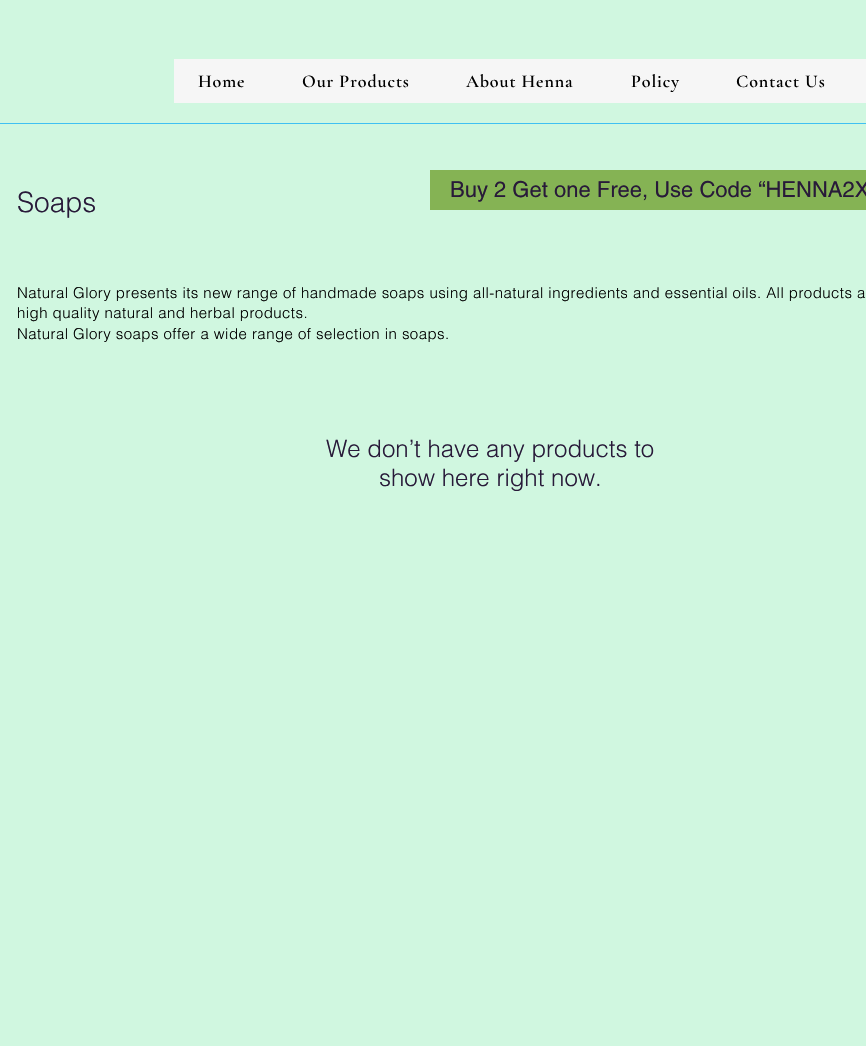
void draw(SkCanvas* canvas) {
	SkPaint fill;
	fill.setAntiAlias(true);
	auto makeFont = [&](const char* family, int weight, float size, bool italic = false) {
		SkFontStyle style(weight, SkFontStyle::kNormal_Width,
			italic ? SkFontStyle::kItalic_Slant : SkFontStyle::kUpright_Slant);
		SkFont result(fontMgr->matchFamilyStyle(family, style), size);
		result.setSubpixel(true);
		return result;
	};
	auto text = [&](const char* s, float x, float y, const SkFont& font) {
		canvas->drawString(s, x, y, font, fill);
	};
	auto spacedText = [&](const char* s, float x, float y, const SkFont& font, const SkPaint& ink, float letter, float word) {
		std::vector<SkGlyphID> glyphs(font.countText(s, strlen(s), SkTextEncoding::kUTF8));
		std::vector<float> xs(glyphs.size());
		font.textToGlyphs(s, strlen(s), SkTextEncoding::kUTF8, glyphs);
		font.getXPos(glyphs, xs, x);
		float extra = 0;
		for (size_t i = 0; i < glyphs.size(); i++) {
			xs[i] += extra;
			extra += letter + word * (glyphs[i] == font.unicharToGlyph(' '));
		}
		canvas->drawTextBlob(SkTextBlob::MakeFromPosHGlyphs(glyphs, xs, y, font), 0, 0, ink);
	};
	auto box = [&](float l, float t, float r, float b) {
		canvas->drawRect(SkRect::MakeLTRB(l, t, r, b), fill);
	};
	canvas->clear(0xFFD0F7E0);
	fill.setColor(0xFFF6F6F6);
	box(174, 59, 866, 103);
	fill.setColor(0xFF40C0F2);
	box(0, 123, 866, 124);
	fill.setColor(0xFF85B354);
	box(430, 170, 866, 210);
	auto font1 = makeFont("Cormorant Garamond", 600, 18);
	fill.setColor(0xFF000000);
	spacedText("Home", 198, 87, font1, fill, 0.9f, 0);
	spacedText("Our Products", 302, 87, font1, fill, 0.9f, 0);
	spacedText("About Henna", 466, 87, font1, fill, 0.9f, 0);
	spacedText("Policy", 631, 87, font1, fill, 0.9f, 0);
	spacedText("Contact Us", 736, 87, font1, fill, 0.9f, 0);
	auto font2 = makeFont("helvetica", 300, 28);
	fill.setColor(0xFF281A39);
	text("Soaps", 17, 212, font2);
	auto font3 = makeFont("helvetica", 400, 22);
	text("Buy 2 Get one Free, Use Code “HENNA2X", 450, 197, font3);
	auto font4 = makeFont("helvetica", 300, 15);
	fill.setColor(0xFF000000);
	spacedText("Natural Glory presents its new range of handmade soaps using all-natural ingredients and essential oils. All products a", 17, 298, font4, fill, 0.45f, 0);
	spacedText("high quality natural and herbal products.", 17, 318, font4, fill, 0.45f, 0);
	spacedText("Natural Glory soaps offer a wide range of selection in soaps.", 17, 339, font4, fill, 0.45f, 0);
	auto font5 = makeFont("helvetica", 300, 24);
	fill.setColor(0xFF281A39);
	text("We don’t have any products to", 326, 457, font5);
	text("show here right now.", 379, 486, font5);
}
